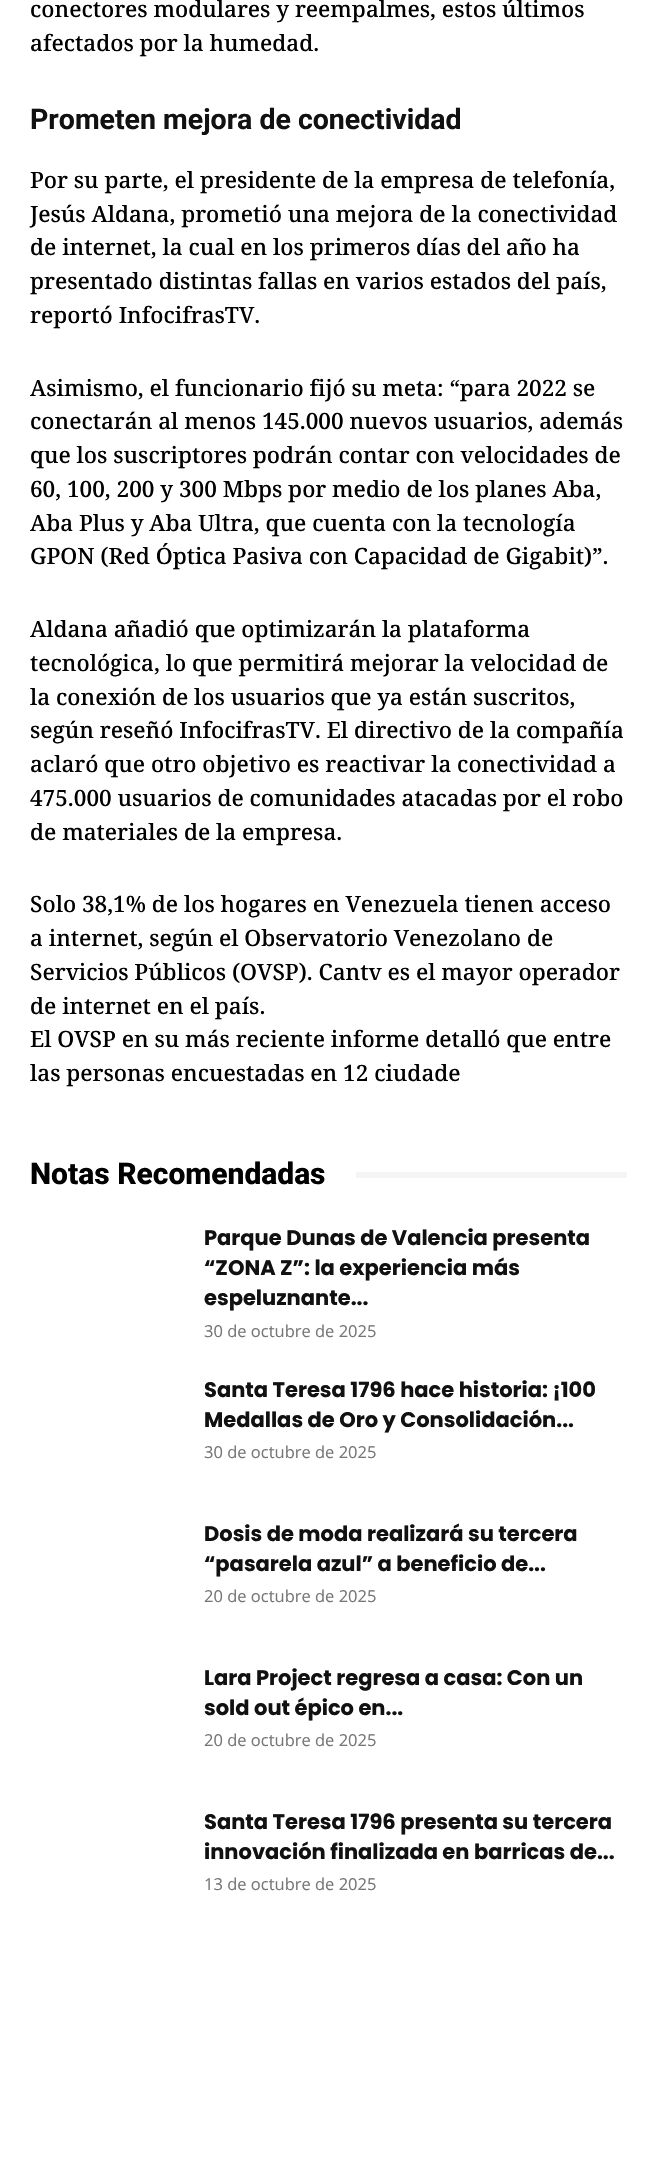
void draw(SkCanvas* canvas) {
	SkPaint fill;
	fill.setAntiAlias(true);
	auto makeFont = [&](const char* family, int weight, float size, bool italic = false) {
		SkFontStyle style(weight, SkFontStyle::kNormal_Width,
			italic ? SkFontStyle::kItalic_Slant : SkFontStyle::kUpright_Slant);
		SkFont result(fontMgr->matchFamilyStyle(family, style), size);
		result.setSubpixel(true);
		return result;
	};
	auto text = [&](const char* s, float x, float y, const SkFont& font) {
		canvas->drawString(s, x, y, font, fill);
	};
	auto box = [&](float l, float t, float r, float b) {
		canvas->drawRect(SkRect::MakeLTRB(l, t, r, b), fill);
	};
	canvas->clear(0xFFFFFFFF);
	fill.setColor(0xFFF5F5F5);
	box(356, 1172, 627, 1178);
	auto font1 = makeFont("Noto Serif", 500, 22.5f);
	fill.setColor(0xFF000000);
	text("conectores modulares y reempalmes, estos últimos", 30, 17, font1);
	text("afectados por la humedad.", 30, 51, font1);
	auto font2 = makeFont("Roboto", 700, 28.5f);
	fill.setColor(0xFF111111);
	text("Prometen mejora de conectividad", 30, 129, font2);
	fill.setColor(0xFF000000);
	text("Por su parte, el presidente de la empresa de telefonía,", 30, 188, font1);
	text("Jesús Aldana, prometió una mejora de la conectividad", 30, 222, font1);
	text("de internet, la cual en los primeros días del año ha", 30, 255, font1);
	text("presentado distintas fallas en varios estados del país,", 30, 289, font1);
	text("reportó InfocifrasTV.", 30, 323, font1);
	text("Asimismo, el funcionario fijó su meta: “para 2022 se", 30, 396, font1);
	text("conectarán al menos 145.000 nuevos usuarios, además", 30, 429, font1);
	text("que los suscriptores podrán contar con velocidades de", 30, 463, font1);
	text("60, 100, 200 y 300 Mbps por medio de los planes Aba,", 30, 497, font1);
	text("Aba Plus y Aba Ultra, que cuenta con la tecnología", 30, 531, font1);
	text("GPON (Red Óptica Pasiva con Capacidad de Gigabit)”.", 30, 564, font1);
	text("Aldana añadió que optimizarán la plataforma", 30, 637, font1);
	text("tecnológica, lo que permitirá mejorar la velocidad de", 30, 671, font1);
	text("la conexión de los usuarios que ya están suscritos,", 30, 705, font1);
	text("según reseñó InfocifrasTV. El directivo de la compañía", 30, 738, font1);
	text("aclaró que otro objetivo es reactivar la conectividad a", 30, 772, font1);
	text("475.000 usuarios de comunidades atacadas por el robo", 30, 806, font1);
	text("de materiales de la empresa.", 30, 840, font1);
	text("Solo 38,1% de los hogares en Venezuela tienen acceso", 30, 912, font1);
	text("a internet, según el Observatorio Venezolano de", 30, 946, font1);
	text("Servicios Públicos (OVSP). Cantv es el mayor operador", 30, 980, font1);
	text("de internet en el país.", 30, 1014, font1);
	text("El OVSP en su más reciente informe detalló que entre", 30, 1047, font1);
	text("las personas encuestadas en 12 ciudade", 30, 1081, font1);
	auto font3 = makeFont("Roboto", 800, 30);
	text("Notas Recomendadas", 30, 1184, font3);
	auto font4 = makeFont("Poppins", 700, 21);
	fill.setColor(0xFF111111);
	text("Parque Dunas de Valencia presenta", 204, 1245, font4);
	text("“ZONA Z”: la experiencia más", 204, 1275, font4);
	text("espeluznante...", 204, 1305, font4);
	auto font5 = makeFont("Open Sans", 400, 16.5f);
	fill.setColor(0xFF767676);
	text("30 de octubre de 2025", 204, 1337, font5);
	fill.setColor(0xFF111111);
	text("Santa Teresa 1796 hace historia: ¡100", 204, 1397, font4);
	text("Medallas de Oro y Consolidación...", 204, 1427, font4);
	fill.setColor(0xFF767676);
	text("30 de octubre de 2025", 204, 1458, font5);
	fill.setColor(0xFF111111);
	text("Dosis de moda realizará su tercera", 204, 1541, font4);
	text("“pasarela azul” a beneficio de...", 204, 1571, font4);
	fill.setColor(0xFF767676);
	text("20 de octubre de 2025", 204, 1602, font5);
	fill.setColor(0xFF111111);
	text("Lara Project regresa a casa: Con un", 204, 1685, font4);
	text("sold out épico en...", 204, 1715, font4);
	fill.setColor(0xFF767676);
	text("20 de octubre de 2025", 204, 1746, font5);
	fill.setColor(0xFF111111);
	text("Santa Teresa 1796 presenta su tercera", 204, 1829, font4);
	text("innovación finalizada en barricas de...", 204, 1859, font4);
	fill.setColor(0xFF767676);
	text("13 de octubre de 2025", 204, 1890, font5);
}
